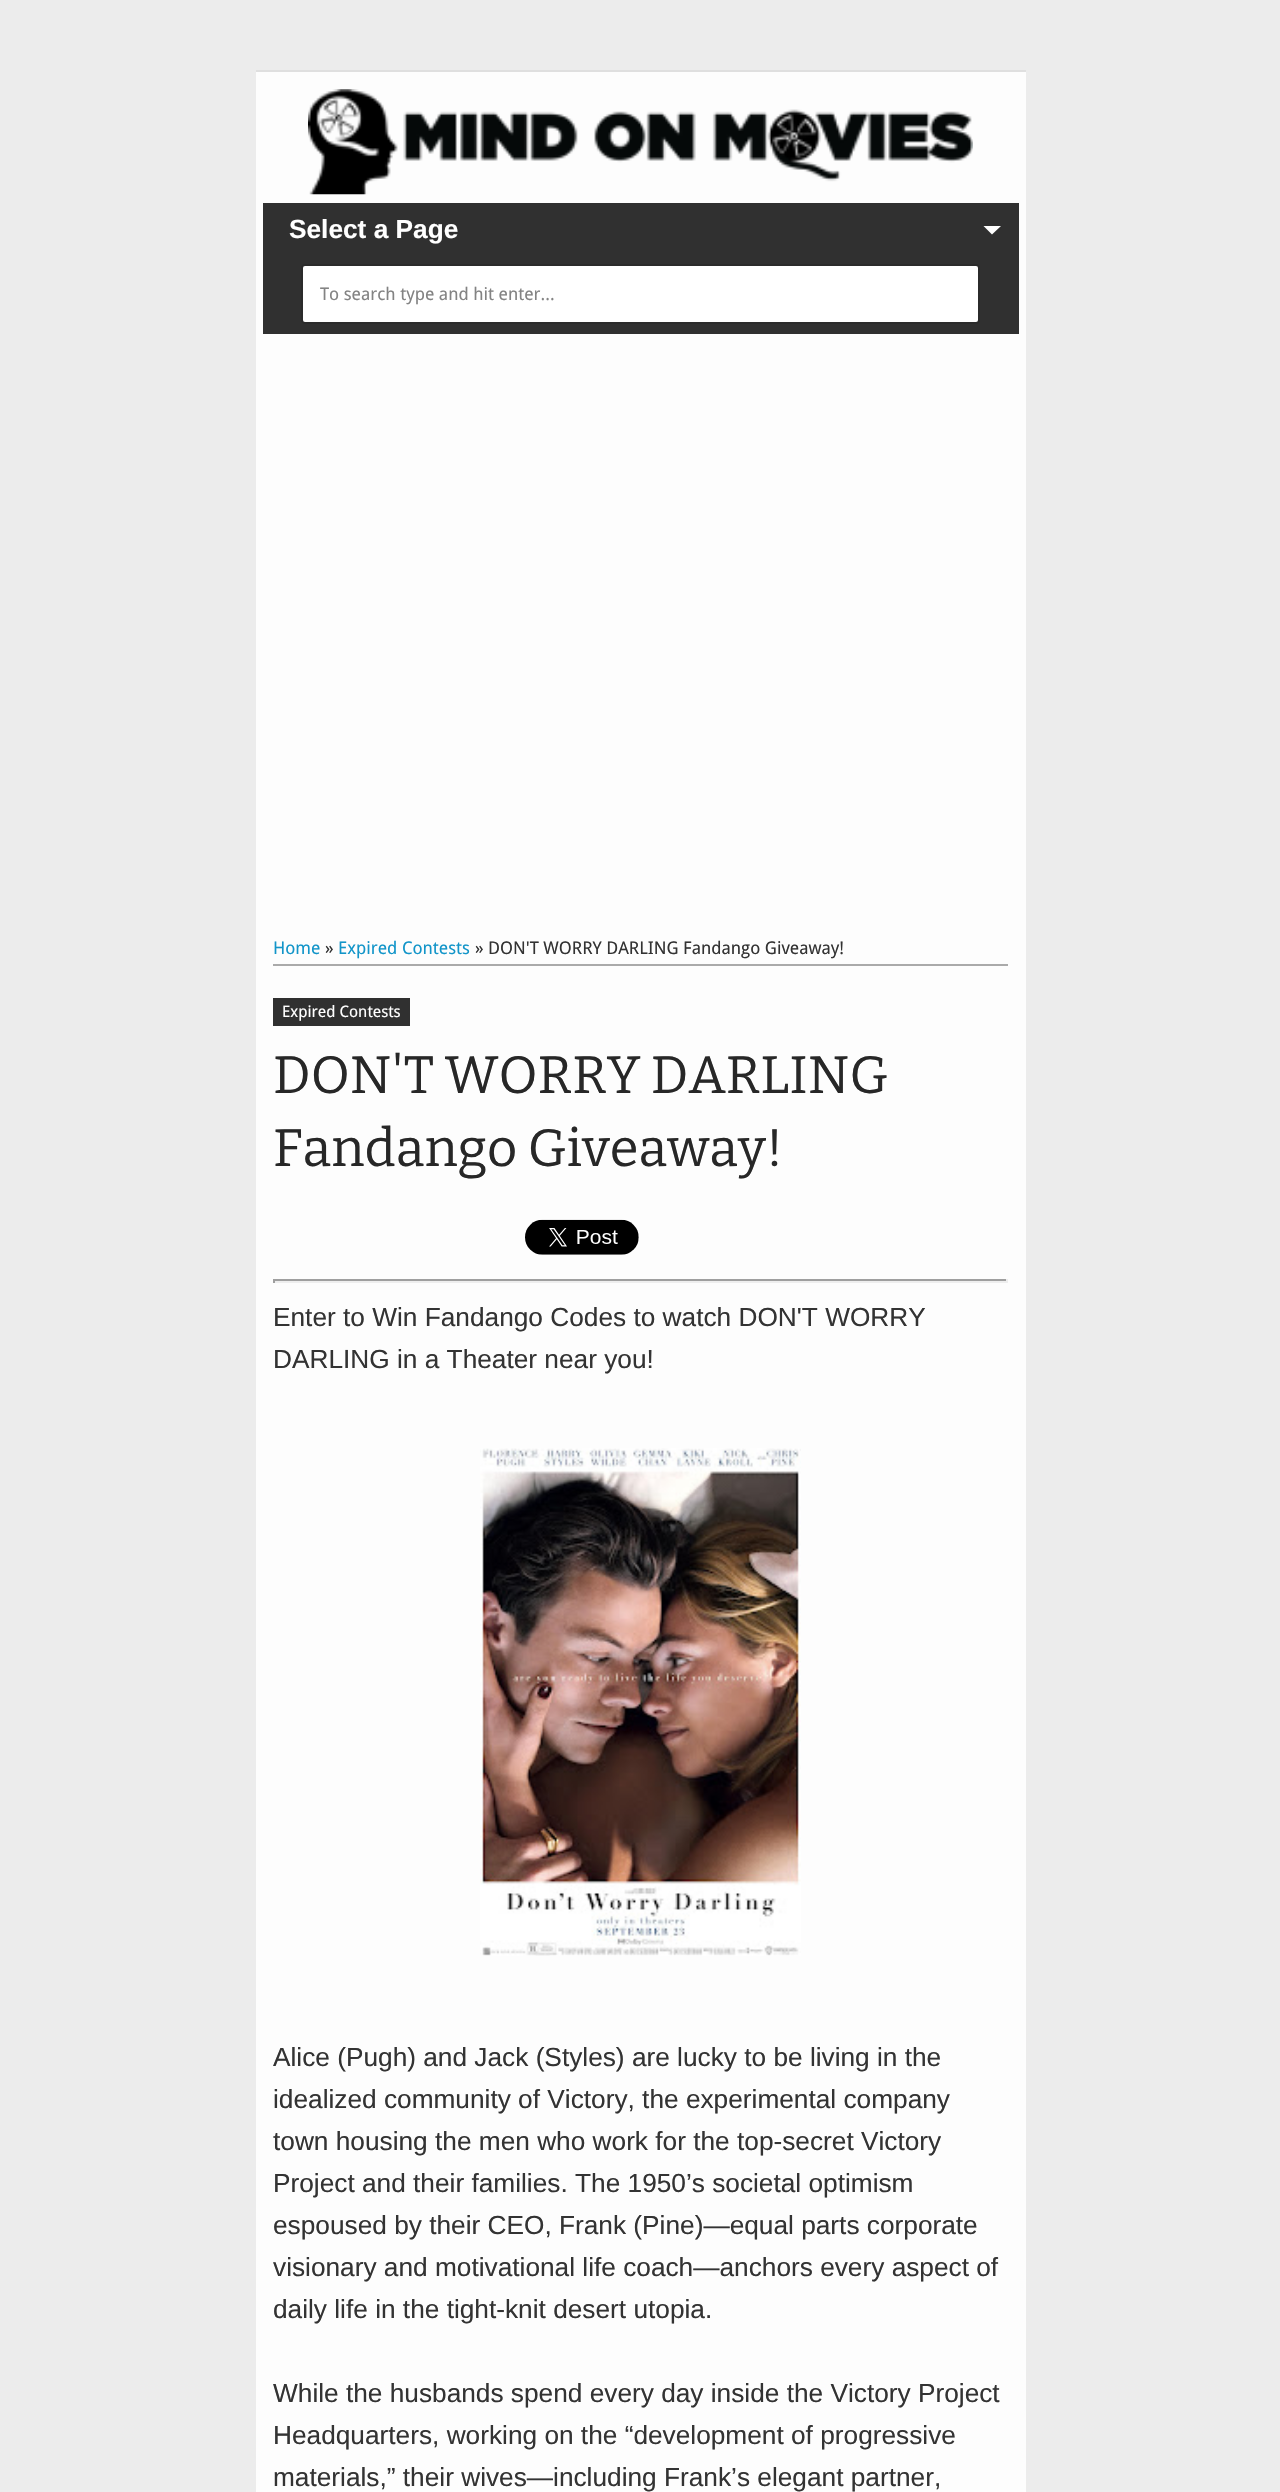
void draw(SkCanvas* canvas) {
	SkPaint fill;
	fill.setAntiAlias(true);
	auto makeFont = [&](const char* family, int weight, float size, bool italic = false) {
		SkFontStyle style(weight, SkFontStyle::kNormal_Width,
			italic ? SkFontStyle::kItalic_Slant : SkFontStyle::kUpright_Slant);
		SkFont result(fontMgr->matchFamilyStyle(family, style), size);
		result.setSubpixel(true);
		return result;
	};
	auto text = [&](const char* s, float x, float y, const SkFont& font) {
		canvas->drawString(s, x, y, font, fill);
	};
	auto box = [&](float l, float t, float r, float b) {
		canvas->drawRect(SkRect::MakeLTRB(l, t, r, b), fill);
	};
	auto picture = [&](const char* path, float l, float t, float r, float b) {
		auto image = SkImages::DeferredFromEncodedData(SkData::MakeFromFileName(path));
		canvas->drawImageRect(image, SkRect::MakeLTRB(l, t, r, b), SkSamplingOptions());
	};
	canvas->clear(0xFFECECEC);
	fill.setColor(0xFFFDFDFD);
	box(256, 72, 1026, 2492);
	fill.setColor(0xFFDFDFDF);
	box(256, 70, 1026, 72);
	picture("image0.png", 308, 89, 973, 195);
	fill.setColor(0xFF303030);
	box(263, 203, 1019, 334);
	fill.setColor(0xFFFFFFFF);
	canvas->drawPath(SkPathBuilder().moveTo(983.5f, 226).lineTo(1001, 226).lineTo(992, 234.5f).close().detach(), fill);
	canvas->drawRoundRect(SkRect::MakeLTRB(302, 265, 979, 323), 3, 3, fill);
	fill.setStyle(SkPaint::kStroke_Style);
	fill.setStrokeWidth(2);
	fill.setColor(0xFF2B2B2B);
	canvas->drawRoundRect(SkRect::MakeLTRB(302, 265, 979, 323), 3, 3, fill);
	fill.setStyle(SkPaint::kFill_Style);
	fill.setColor(0xFFAAAAAA);
	box(273, 964, 1008, 966);
	fill.setColor(0xFF303030);
	box(273, 998, 410, 1026);
	picture("image1.png", 525, 1219, 639, 1255);
	fill.setColor(0xFF9F9F9F);
	box(273, 1279, 1008, 1281);
	fill.setColor(0xFFEEEEEE);
	box(1006, 1279, 1008, 1283);
	box(273, 1281, 1008, 1283);
	fill.setColor(0xFF9F9F9F);
	box(273, 1279, 275, 1283);
	picture("image2.png", 480, 1448, 801, 1956);
	auto font1 = makeFont("Liberation Sans", 700, 26.25f);
	fill.setColor(0xFFFFFFFF);
	text("Select a Page", 289, 238, font1);
	auto font2 = makeFont("Droid Sans", 400, 17.5f);
	fill.setColor(0xFF838383);
	text("To search type and hit enter...", 320, 300, font2);
	fill.setColor(0xFF1295C9);
	text("Home", 273, 954, font2);
	fill.setColor(0xFF333333);
	text("»", 325, 954, font2);
	fill.setColor(0xFF1295C9);
	text("Expired Contests", 338, 954, font2);
	fill.setColor(0xFF333333);
	text("» DON'T WORRY DARLING Fandango Giveaway!", 475, 954, font2);
	auto font3 = makeFont("Droid Sans", 400, 15.75f);
	fill.setColor(0xFFFFFFFF);
	text("Expired Contests", 282, 1017, font3);
	auto font4 = makeFont("Bitter", 100, 52.5f);
	fill.setColor(0xFF272727);
	text("DON'T WORRY DARLING", 273, 1093, font4);
	text("Fandango Giveaway!", 273, 1166, font4);
	auto font5 = makeFont("Liberation Sans", 400, 26.25f);
	fill.setColor(0xFF333333);
	text("Enter to Win Fandango Codes to watch DON'T WORRY", 273, 1326, font5);
	text("DARLING in a Theater near you!", 273, 1368, font5);
	text("Alice (Pugh) and Jack (Styles) are lucky to be living in the", 273, 2066, font5);
	text("idealized community of Victory, the experimental company", 273, 2108, font5);
	text("town housing the men who work for the top-secret Victory", 273, 2150, font5);
	text("Project and their families. The 1950’s societal optimism", 273, 2192, font5);
	text("espoused by their CEO, Frank (Pine)—equal parts corporate", 273, 2234, font5);
	text("visionary and motivational life coach—anchors every aspect of", 273, 2276, font5);
	text("daily life in the tight-knit desert utopia.", 273, 2318, font5);
	text("While the husbands spend every day inside the Victory Project", 273, 2402, font5);
	text("Headquarters, working on the “development of progressive", 273, 2444, font5);
	text("materials,” their wives—including Frank’s elegant partner,", 273, 2486, font5);
}
